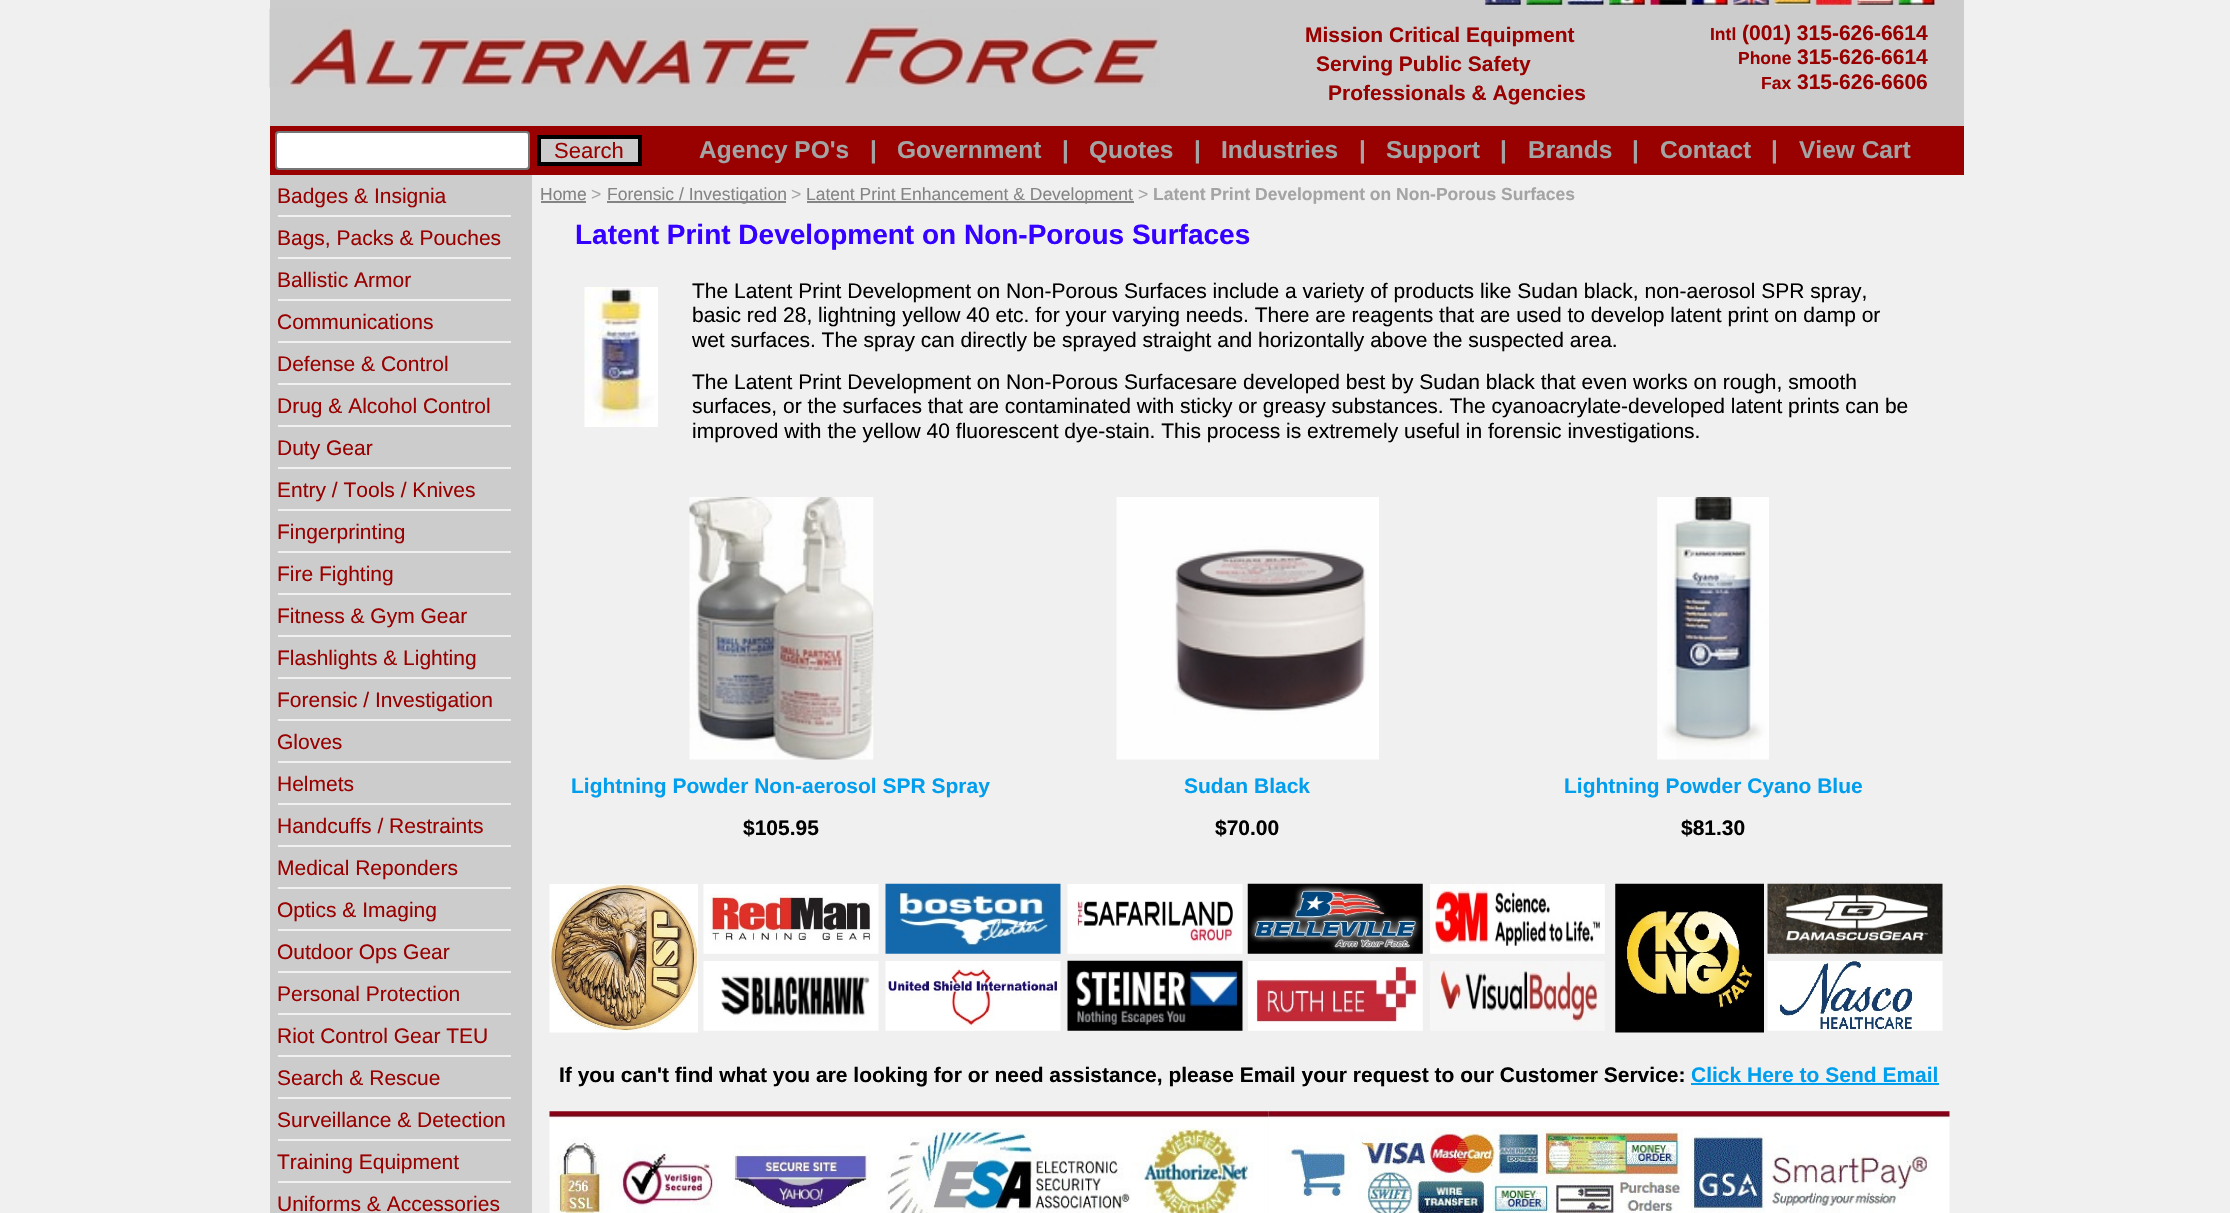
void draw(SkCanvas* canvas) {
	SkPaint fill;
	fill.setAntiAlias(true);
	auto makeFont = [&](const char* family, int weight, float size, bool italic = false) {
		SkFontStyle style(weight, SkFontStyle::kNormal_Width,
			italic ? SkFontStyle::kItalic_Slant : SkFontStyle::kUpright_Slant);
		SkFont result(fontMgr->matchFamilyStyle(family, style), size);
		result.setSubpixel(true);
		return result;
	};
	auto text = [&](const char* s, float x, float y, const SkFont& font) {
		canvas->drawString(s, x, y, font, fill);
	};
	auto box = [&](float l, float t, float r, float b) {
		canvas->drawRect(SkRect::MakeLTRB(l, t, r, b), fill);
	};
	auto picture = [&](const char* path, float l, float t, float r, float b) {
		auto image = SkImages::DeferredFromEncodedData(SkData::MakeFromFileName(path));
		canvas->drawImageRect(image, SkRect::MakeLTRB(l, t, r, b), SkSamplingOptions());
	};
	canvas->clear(0xFFF0F0F1);
	fill.setColor(0xFFCCCCCC);
	box(270, 0, 1964, 126);
	picture("image0.png", 269, 8, 1160, 88);
	picture("image1.png", 1482, 0, 1937, 6);
	fill.setColor(0xFF990000);
	box(270, 126, 1964, 175);
	fill.setColor(0xFFFFFFFF);
	canvas->drawRoundRect(SkRect::MakeLTRB(276, 132, 529, 169), 3, 3, fill);
	fill.setStyle(SkPaint::kStroke_Style);
	fill.setStrokeWidth(2);
	fill.setColor(0xFF767676);
	canvas->drawRoundRect(SkRect::MakeLTRB(276, 132, 529, 169), 3, 3, fill);
	fill.setStyle(SkPaint::kFill_Style);
	fill.setColor(0xFFCCCCCC);
	canvas->drawRect(SkRect::MakeLTRB(539, 137, 640, 164), fill);
	fill.setStyle(SkPaint::kStroke_Style);
	fill.setStrokeWidth(4);
	fill.setColor(0xFF000000);
	canvas->drawRect(SkRect::MakeLTRB(539, 137, 640, 164), fill);
	fill.setStyle(SkPaint::kFill_Style);
	fill.setColor(0xFFCCCCCC);
	box(270, 175, 532, 1213);
	fill.setColor(0xFFF0F0F0);
	box(278, 215, 511, 217);
	box(278, 257, 511, 259);
	box(278, 299, 511, 301);
	box(278, 341, 511, 343);
	box(278, 383, 511, 385);
	box(278, 425, 511, 427);
	box(278, 467, 511, 469);
	box(278, 509, 511, 511);
	box(278, 551, 511, 553);
	box(278, 593, 511, 595);
	box(278, 635, 511, 637);
	box(278, 677, 511, 679);
	box(278, 719, 511, 721);
	box(278, 761, 511, 763);
	box(278, 803, 511, 805);
	box(278, 845, 511, 847);
	box(278, 887, 511, 889);
	box(278, 929, 511, 931);
	box(278, 971, 511, 973);
	box(278, 1013, 511, 1015);
	box(278, 1055, 511, 1057);
	box(278, 1097, 511, 1099);
	box(278, 1139, 511, 1141);
	box(278, 1181, 511, 1183);
	fill.setColor(0xFF848484);
	box(541, 201, 586, 203);
	box(607, 201, 786, 203);
	box(807, 201, 1134, 203);
	picture("image2.png", 584, 287, 658, 427);
	picture("image3.png", 689, 497, 874, 760);
	picture("image4.png", 1116, 497, 1379, 760);
	picture("image5.png", 1657, 497, 1769, 760);
	picture("image6.png", 549, 884, 698, 1033);
	picture("image7.png", 703, 884, 879, 954);
	picture("image8.png", 885, 883, 1061, 954);
	picture("image9.png", 1067, 884, 1243, 954);
	picture("image10.png", 1247, 883, 1423, 954);
	picture("image11.png", 1430, 884, 1605, 954);
	picture("image12.png", 1615, 883, 1764, 1033);
	picture("image13.png", 1767, 883, 1943, 954);
	picture("image14.png", 703, 961, 879, 1031);
	picture("image15.png", 885, 961, 1061, 1031);
	picture("image16.png", 1067, 960, 1243, 1031);
	picture("image17.png", 1248, 961, 1423, 1031);
	picture("image18.png", 1430, 961, 1605, 1031);
	picture("image19.png", 1767, 961, 1943, 1031);
	fill.setColor(0xFF009EED);
	box(1691, 1083, 1939, 1085);
	picture("image20.png", 549, 1111, 1269, 1213);
	picture("image21.png", 1268, 1111, 1950, 1213);
	auto font1 = makeFont("Liberation Sans", 700, 21);
	fill.setColor(0xFF990000);
	text("Mission Critical Equipment", 1305, 42, font1);
	text("Serving Public Safety", 1316, 71, font1);
	text("Professionals & Agencies", 1328, 100, font1);
	auto font2 = makeFont("Liberation Sans", 700, 17.5f);
	text("Intl", 1710, 40, font2);
	text("(001) 315-626-6614", 1742, 40, font1);
	text("Phone", 1738, 64, font2);
	text("315-626-6614", 1797, 64, font1);
	text("Fax", 1761, 89, font2);
	text("315-626-6606", 1797, 89, font1);
	auto font3 = makeFont("Liberation Sans", 400, 22);
	text("Search", 554, 158, font3);
	auto font4 = makeFont("Liberation Sans", 700, 24.5f);
	fill.setColor(0xFFA4A4A4);
	text("Agency PO's", 699, 158, font4);
	text("|", 870, 158, font4);
	text("Government", 897, 158, font4);
	text("|", 1062, 158, font4);
	text("Quotes", 1089, 158, font4);
	text("|", 1194, 158, font4);
	text("Industries", 1221, 158, font4);
	text("|", 1359, 158, font4);
	text("Support", 1386, 158, font4);
	text("|", 1500, 158, font4);
	text("Brands", 1528, 158, font4);
	text("|", 1632, 158, font4);
	text("Contact", 1660, 158, font4);
	text("|", 1771, 158, font4);
	text("View Cart", 1799, 158, font4);
	auto font5 = makeFont("Liberation Sans", 400, 21);
	fill.setColor(0xFF990000);
	text("Badges & Insignia", 277, 203, font5);
	text("Bags, Packs & Pouches", 277, 245, font5);
	text("Ballistic Armor", 277, 287, font5);
	text("Communications", 277, 329, font5);
	text("Defense & Control", 277, 371, font5);
	text("Drug & Alcohol Control", 277, 413, font5);
	text("Duty Gear", 277, 455, font5);
	text("Entry / Tools / Knives", 277, 497, font5);
	text("Fingerprinting", 277, 539, font5);
	text("Fire Fighting", 277, 581, font5);
	text("Fitness & Gym Gear", 277, 623, font5);
	text("Flashlights & Lighting", 277, 665, font5);
	text("Forensic / Investigation", 277, 707, font5);
	text("Gloves", 277, 749, font5);
	text("Helmets", 277, 791, font5);
	text("Handcuffs / Restraints", 277, 833, font5);
	text("Medical Reponders", 277, 875, font5);
	text("Optics & Imaging", 277, 917, font5);
	text("Outdoor Ops Gear", 277, 959, font5);
	text("Personal Protection", 277, 1001, font5);
	text("Riot Control Gear TEU", 277, 1043, font5);
	text("Search & Rescue", 277, 1085, font5);
	text("Surveillance & Detection", 277, 1127, font5);
	text("Training Equipment", 277, 1169, font5);
	text("Uniforms & Accessories", 277, 1211, font5);
	auto font6 = makeFont("Liberation Sans", 400, 17.5f);
	fill.setColor(0xFF848484);
	text("Home", 540, 200, font6);
	fill.setColor(0xFFA4A4A4);
	text(">", 591, 200, font6);
	fill.setColor(0xFF848484);
	text("Forensic / Investigation", 607, 200, font6);
	fill.setColor(0xFFA4A4A4);
	text(">", 791, 200, font6);
	fill.setColor(0xFF848484);
	text("Latent Print Enhancement & Development", 806, 200, font6);
	fill.setColor(0xFFA4A4A4);
	text(">", 1138, 200, font6);
	text("Latent Print Development on Non-Porous Surfaces", 1153, 200, font2);
	auto font7 = makeFont("Liberation Sans", 700, 28);
	fill.setColor(0xFF3400FF);
	text("Latent Print Development on Non-Porous Surfaces", 575, 244, font7);
	fill.setColor(0xFF000000);
	text("The Latent Print Development on Non-Porous Surfaces include a variety of products like Sudan black, non-aerosol SPR spray,", 692, 298, font5);
	text("basic red 28, lightning yellow 40 etc. for your varying needs. There are reagents that are used to develop latent print on damp or", 692, 322, font5);
	text("wet surfaces. The spray can directly be sprayed straight and horizontally above the suspected area.", 692, 347, font5);
	text("The Latent Print Development on Non-Porous Surfacesare developed best by Sudan black that even works on rough, smooth", 692, 389, font5);
	text("surfaces, or the surfaces that are contaminated with sticky or greasy substances. The cyanoacrylate-developed latent prints can be", 692, 413, font5);
	text("improved with the yellow 40 fluorescent dye-stain. This process is extremely useful in forensic investigations.", 692, 438, font5);
	fill.setColor(0xFF009EED);
	text("Lightning Powder Non-aerosol SPR Spray", 571, 793, font1);
	fill.setColor(0xFF000000);
	text("$105.95", 743, 835, font1);
	fill.setColor(0xFF009EED);
	text("Sudan Black", 1184, 793, font1);
	fill.setColor(0xFF000000);
	text("$70.00", 1215, 835, font1);
	fill.setColor(0xFF009EED);
	text("Lightning Powder Cyano Blue", 1564, 793, font1);
	fill.setColor(0xFF000000);
	text("$81.30", 1681, 835, font1);
	text("If you can't find what you are looking for or need assistance, please Email your request to our Customer Service:", 559, 1082, font1);
	fill.setColor(0xFF009EED);
	text("Click Here to Send Email", 1691, 1082, font1);
}
